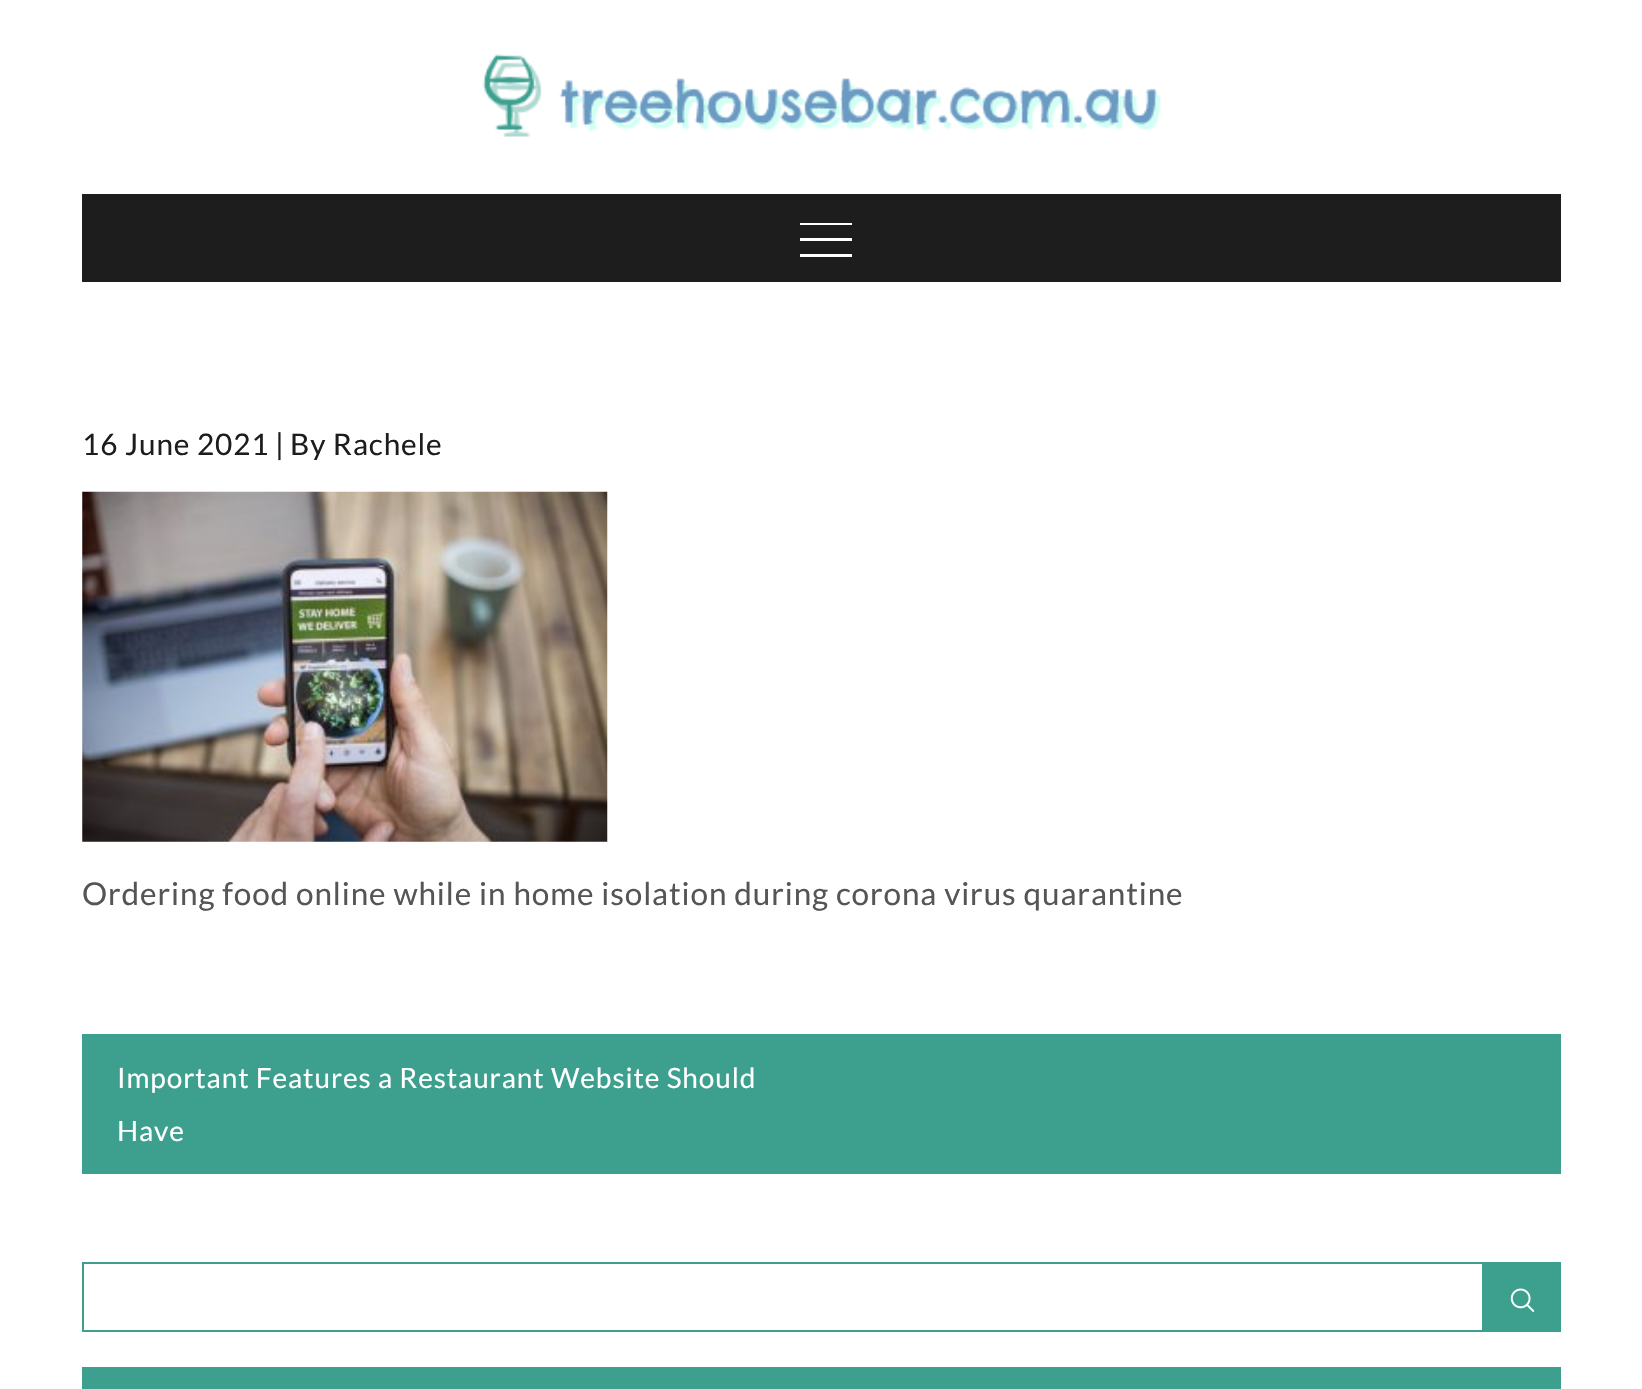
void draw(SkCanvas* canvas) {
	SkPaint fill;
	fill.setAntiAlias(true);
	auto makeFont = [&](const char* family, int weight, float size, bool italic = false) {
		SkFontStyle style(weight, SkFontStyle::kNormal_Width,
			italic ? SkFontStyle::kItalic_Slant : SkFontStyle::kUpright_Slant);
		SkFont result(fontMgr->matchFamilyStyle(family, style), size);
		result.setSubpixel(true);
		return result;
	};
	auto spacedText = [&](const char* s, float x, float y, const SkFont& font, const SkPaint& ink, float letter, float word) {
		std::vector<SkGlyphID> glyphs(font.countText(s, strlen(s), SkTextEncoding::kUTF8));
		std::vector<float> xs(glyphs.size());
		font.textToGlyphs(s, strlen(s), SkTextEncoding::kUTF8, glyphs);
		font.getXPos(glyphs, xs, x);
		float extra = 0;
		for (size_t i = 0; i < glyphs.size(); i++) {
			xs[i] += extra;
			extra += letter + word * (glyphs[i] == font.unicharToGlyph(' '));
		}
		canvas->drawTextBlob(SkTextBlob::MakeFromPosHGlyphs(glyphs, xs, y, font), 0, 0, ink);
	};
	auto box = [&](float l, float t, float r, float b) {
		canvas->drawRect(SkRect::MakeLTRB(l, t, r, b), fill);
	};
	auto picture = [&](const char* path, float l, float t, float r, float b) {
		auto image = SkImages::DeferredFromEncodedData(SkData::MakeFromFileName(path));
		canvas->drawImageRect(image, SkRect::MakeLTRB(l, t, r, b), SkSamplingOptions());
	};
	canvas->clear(0xFFFFFFFF);
	picture("image0.png", 482, 54, 1161, 137);
	fill.setColor(0xFF1D1D1D);
	box(82, 194, 1561, 282);
	fill.setColor(0xFFFFFFFF);
	box(800, 223, 852, 225);
	box(800, 238, 852, 241);
	box(800, 254, 852, 257);
	picture("image1.png", 82, 491, 608, 842);
	fill.setColor(0xFF3DA08F);
	box(82, 1034, 1561, 1174);
	fill.setStyle(SkPaint::kStroke_Style);
	fill.setStrokeWidth(2);
	canvas->drawRect(SkRect::MakeLTRB(83, 1263, 1560, 1331), fill);
	fill.setStyle(SkPaint::kFill_Style);
	box(1482, 1264, 1559, 1330);
	picture("image2.png", 1510, 1288, 1535, 1312);
	box(82, 1367, 1561, 1389);
	auto font1 = makeFont("Lato", 400, 29.75f);
	fill.setColor(0xFF1D1D1D);
	spacedText("16 June 2021", 82, 455, font1, fill, 0.88f, 0);
	spacedText("|", 275, 455, font1, fill, 0.88f, 0);
	spacedText("By Rachele", 290, 455, font1, fill, 0.88f, 0);
	auto font2 = makeFont("Lato", 400, 31.5f);
	fill.setColor(0xFF555555);
	spacedText("Ordering food online while in home isolation during corona virus quarantine", 82, 905, font2, fill, 0.88f, 0);
	auto font3 = makeFont("Lato", 400, 28);
	fill.setColor(0xFFFFFFFF);
	spacedText("Important Features a Restaurant Website Should", 117, 1088, font3, fill, 0.88f, 0);
	spacedText("Have", 117, 1141, font3, fill, 0.88f, 0);
}
